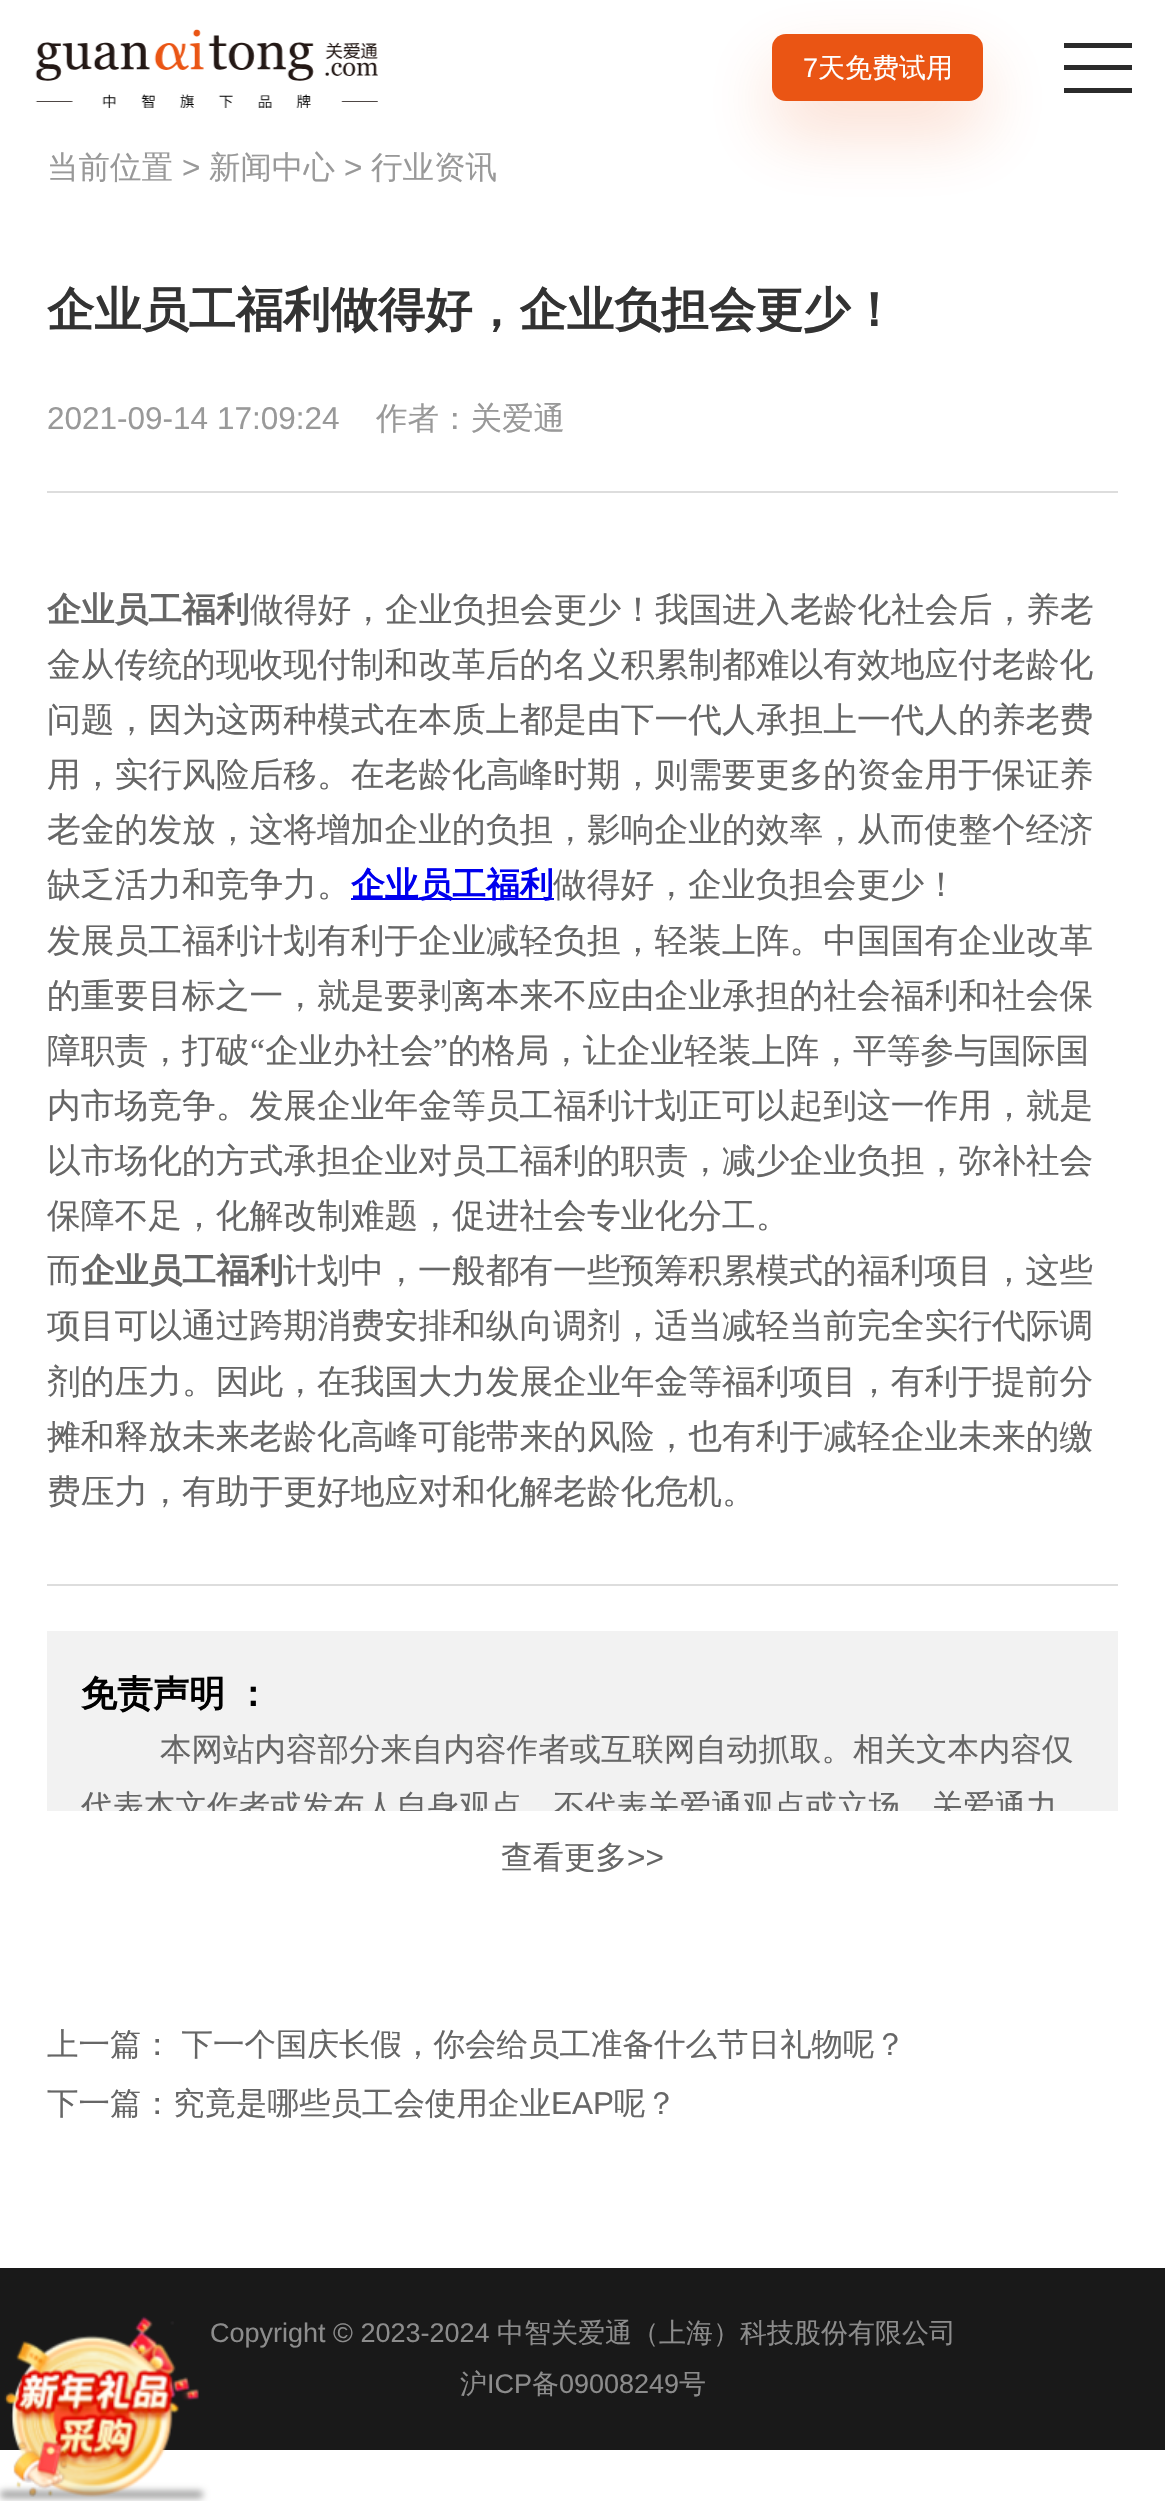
void draw(SkCanvas* canvas) {
	SkPaint fill;
	fill.setAntiAlias(true);
	auto makeFont = [&](const char* family, int weight, float size, bool italic = false) {
		SkFontStyle style(weight, SkFontStyle::kNormal_Width,
			italic ? SkFontStyle::kItalic_Slant : SkFontStyle::kUpright_Slant);
		SkFont result(fontMgr->matchFamilyStyle(family, style), size);
		result.setSubpixel(true);
		return result;
	};
	auto text = [&](const char* s, float x, float y, const SkFont& font) {
		canvas->drawString(s, x, y, font, fill);
	};
	auto spacedText = [&](const char* s, float x, float y, const SkFont& font, const SkPaint& ink, float letter, float word) {
		std::vector<SkGlyphID> glyphs(font.countText(s, strlen(s), SkTextEncoding::kUTF8));
		std::vector<float> xs(glyphs.size());
		font.textToGlyphs(s, strlen(s), SkTextEncoding::kUTF8, glyphs);
		font.getXPos(glyphs, xs, x);
		float extra = 0;
		for (size_t i = 0; i < glyphs.size(); i++) {
			xs[i] += extra;
			extra += letter + word * (glyphs[i] == font.unicharToGlyph(' '));
		}
		canvas->drawTextBlob(SkTextBlob::MakeFromPosHGlyphs(glyphs, xs, y, font), 0, 0, ink);
	};
	auto box = [&](float l, float t, float r, float b) {
		canvas->drawRect(SkRect::MakeLTRB(l, t, r, b), fill);
	};
	auto roundBox = [&](float l, float t, float r, float b, float radius) {
		canvas->drawRoundRect(SkRect::MakeLTRB(l, t, r, b), radius, radius, fill);
	};
	auto picture = [&](const char* path, float l, float t, float r, float b) {
		auto image = SkImages::DeferredFromEncodedData(SkData::MakeFromFileName(path));
		canvas->drawImageRect(image, SkRect::MakeLTRB(l, t, r, b), SkSamplingOptions());
	};
	canvas->clear(0xFFFFFFFF);
	picture("image0.png", 35, 29, 378, 108);
	fill.setColor(0x33EA5514);
	fill.setMaskFilter(SkMaskFilter::MakeBlur(kNormal_SkBlurStyle, 34));
	canvas->drawRoundRect(SkRect::MakeLTRB(772, 65, 983, 133), 14, 14, fill);
	fill.setMaskFilter(nullptr);
	fill.setColor(0xFFEA5514);
	roundBox(772, 34, 983, 101, 14);
	fill.setColor(0xFF2B2B2B);
	box(1064, 65, 1132, 70);
	box(1064, 43, 1132, 48);
	box(1064, 88, 1132, 93);
	fill.setColor(0xFFDDDDDD);
	box(47, 491, 1118, 493);
	fill.setColor(0xFF0000EE);
	box(351, 898, 554, 900);
	fill.setColor(0xFFDDDDDD);
	box(47, 1584, 1118, 1586);
	fill.setColor(0xFFF2F2F2);
	box(47, 1631, 1118, 1811);
	fill.setColor(0xFF191919);
	box(0, 2268, 1165, 2450);
	picture("image1.png", 4, 2316, 199, 2497);
	fill.setColor(0x66000000);
	fill.setMaskFilter(SkMaskFilter::MakeBlur(kNormal_SkBlurStyle, 3.5f));
	canvas->drawRoundRect(SkRect::MakeLTRB(0, 2491, 203, 2498), 3.5f, 3.5f, fill);
	fill.setMaskFilter(nullptr);
	auto font1 = makeFont("Liberation Sans", 400, 27);
	fill.setColor(0xFFFFFFFF);
	text("7", 803, 77, font1);
	auto font2 = makeFont("WenQuanYi Zen Hei", 500, 27);
	text("天免费试用", 818, 77, font2);
	auto font3 = makeFont("WenQuanYi Zen Hei", 500, 31.5f);
	fill.setColor(0xFF999999);
	text("当前位置", 47, 178, font3);
	auto font4 = makeFont("Liberation Sans", 400, 31.5f);
	text(">", 182, 178, font4);
	text("新闻中心", 209, 178, font3);
	text(">", 344, 178, font4);
	text("行业资讯", 371, 178, font3);
	auto font5 = makeFont("WenQuanYi Zen Hei", 700, 47.25f);
	fill.setColor(0xFF333333);
	text("企业员工福利做得好，企业负担会更少！", 47, 326, font5);
	fill.setColor(0xFF999999);
	text("2021-09-14 17:09:24", 47, 429, font4);
	text("作者：关爱通", 376, 429, font3);
	auto font6 = makeFont("WenQuanYi Zen Hei", 700, 33.75f);
	fill.setColor(0xFF666666);
	text("企业员工福利", 47, 621, font6);
	auto font7 = makeFont("WenQuanYi Zen Hei", 500, 33.75f);
	text("做得好，企业负担会更少！我国进入老龄化社会后，养老", 250, 621, font7);
	text("金从传统的现收现付制和改革后的名义积累制都难以有效地应付老龄化", 47, 676, font7);
	text("问题，因为这两种模式在本质上都是由下一代人承担上一代人的养老费", 47, 731, font7);
	text("用，实行风险后移。在老龄化高峰时期，则需要更多的资金用于保证养", 47, 786, font7);
	text("老金的发放，这将增加企业的负担，影响企业的效率，从而使整个经济", 47, 841, font7);
	text("缺乏活力和竞争力。", 47, 896, font7);
	fill.setColor(0xFF0000EE);
	text("企业员工福利", 351, 896, font6);
	fill.setColor(0xFF666666);
	text("做得好，企业负担会更少！", 553, 896, font7);
	text("发展员工福利计划有利于企业减轻负担，轻装上阵。中国国有企业改革", 47, 952, font7);
	text("的重要目标之一，就是要剥离本来不应由企业承担的社会福利和社会保", 47, 1007, font7);
	text("障职责，打破", 47, 1062, font7);
	auto font8 = makeFont("Liberation Serif", 400, 33.75f);
	text("“", 250, 1062, font8);
	text("企业办社会", 265, 1062, font7);
	text("”", 433, 1062, font8);
	text("的格局，让企业轻装上阵，平等参与国际国", 448, 1062, font7);
	text("内市场竞争。发展企业年金等员工福利计划正可以起到这一作用，就是", 47, 1117, font7);
	text("以市场化的方式承担企业对员工福利的职责，减少企业负担，弥补社会", 47, 1172, font7);
	text("保障不足，化解改制难题，促进社会专业化分工。", 47, 1227, font7);
	text("而", 47, 1282, font7);
	text("企业员工福利", 81, 1282, font6);
	text("计划中，一般都有一些预筹积累模式的福利项目，这些", 283, 1282, font7);
	text("项目可以通过跨期消费安排和纵向调剂，适当减轻当前完全实行代际调", 47, 1337, font7);
	text("剂的压力。因此，在我国大力发展企业年金等福利项目，有利于提前分", 47, 1393, font7);
	text("摊和释放未来老龄化高峰可能带来的风险，也有利于减轻企业未来的缴", 47, 1448, font7);
	text("费压力，有助于更好地应对和化解老龄化危机。", 47, 1503, font7);
	auto font9 = makeFont("WenQuanYi Zen Hei", 700, 36);
	fill.setColor(0xFF000000);
	spacedText("免责声明 ：", 81, 1706, font9, fill, 0, -1);
	fill.setColor(0xFF666666);
	text("本网站内容部分来自内容作者或互联网自动抓取。相关文本内容仅", 160, 1760, font3);
	canvas->save();
	canvas->clipRect(SkRect::MakeLTRB(47, 1631, 1118, 1811));
	text("代表本文作者或发布人自身观点，不代表关爱通观点或立场。关爱通力", 81, 1817, font3);
	canvas->restore();
	text("查看更多", 501, 1868, font3);
	text(">>", 627, 1868, font4);
	spacedText("上一篇： 下一个国庆长假，你会给员工准备什么节日礼物呢？", 47, 2055, font3, fill, 0, -1);
	text("下一篇：究竟是哪些员工会使用企业", 47, 2114, font3);
	text("EAP", 551, 2114, font4);
	text("呢？", 614, 2114, font3);
	fill.setColor(0xFF8C8C8C);
	text("Copyright © 2023-2024", 210, 2342, font1);
	text("中智关爱通（上海）科技股份有限公司", 497, 2342, font2);
	text("沪", 460, 2393, font2);
	text("ICP", 487, 2393, font1);
	text("备", 532, 2393, font2);
	text("09008249", 559, 2393, font1);
	text("号", 679, 2393, font2);
}
